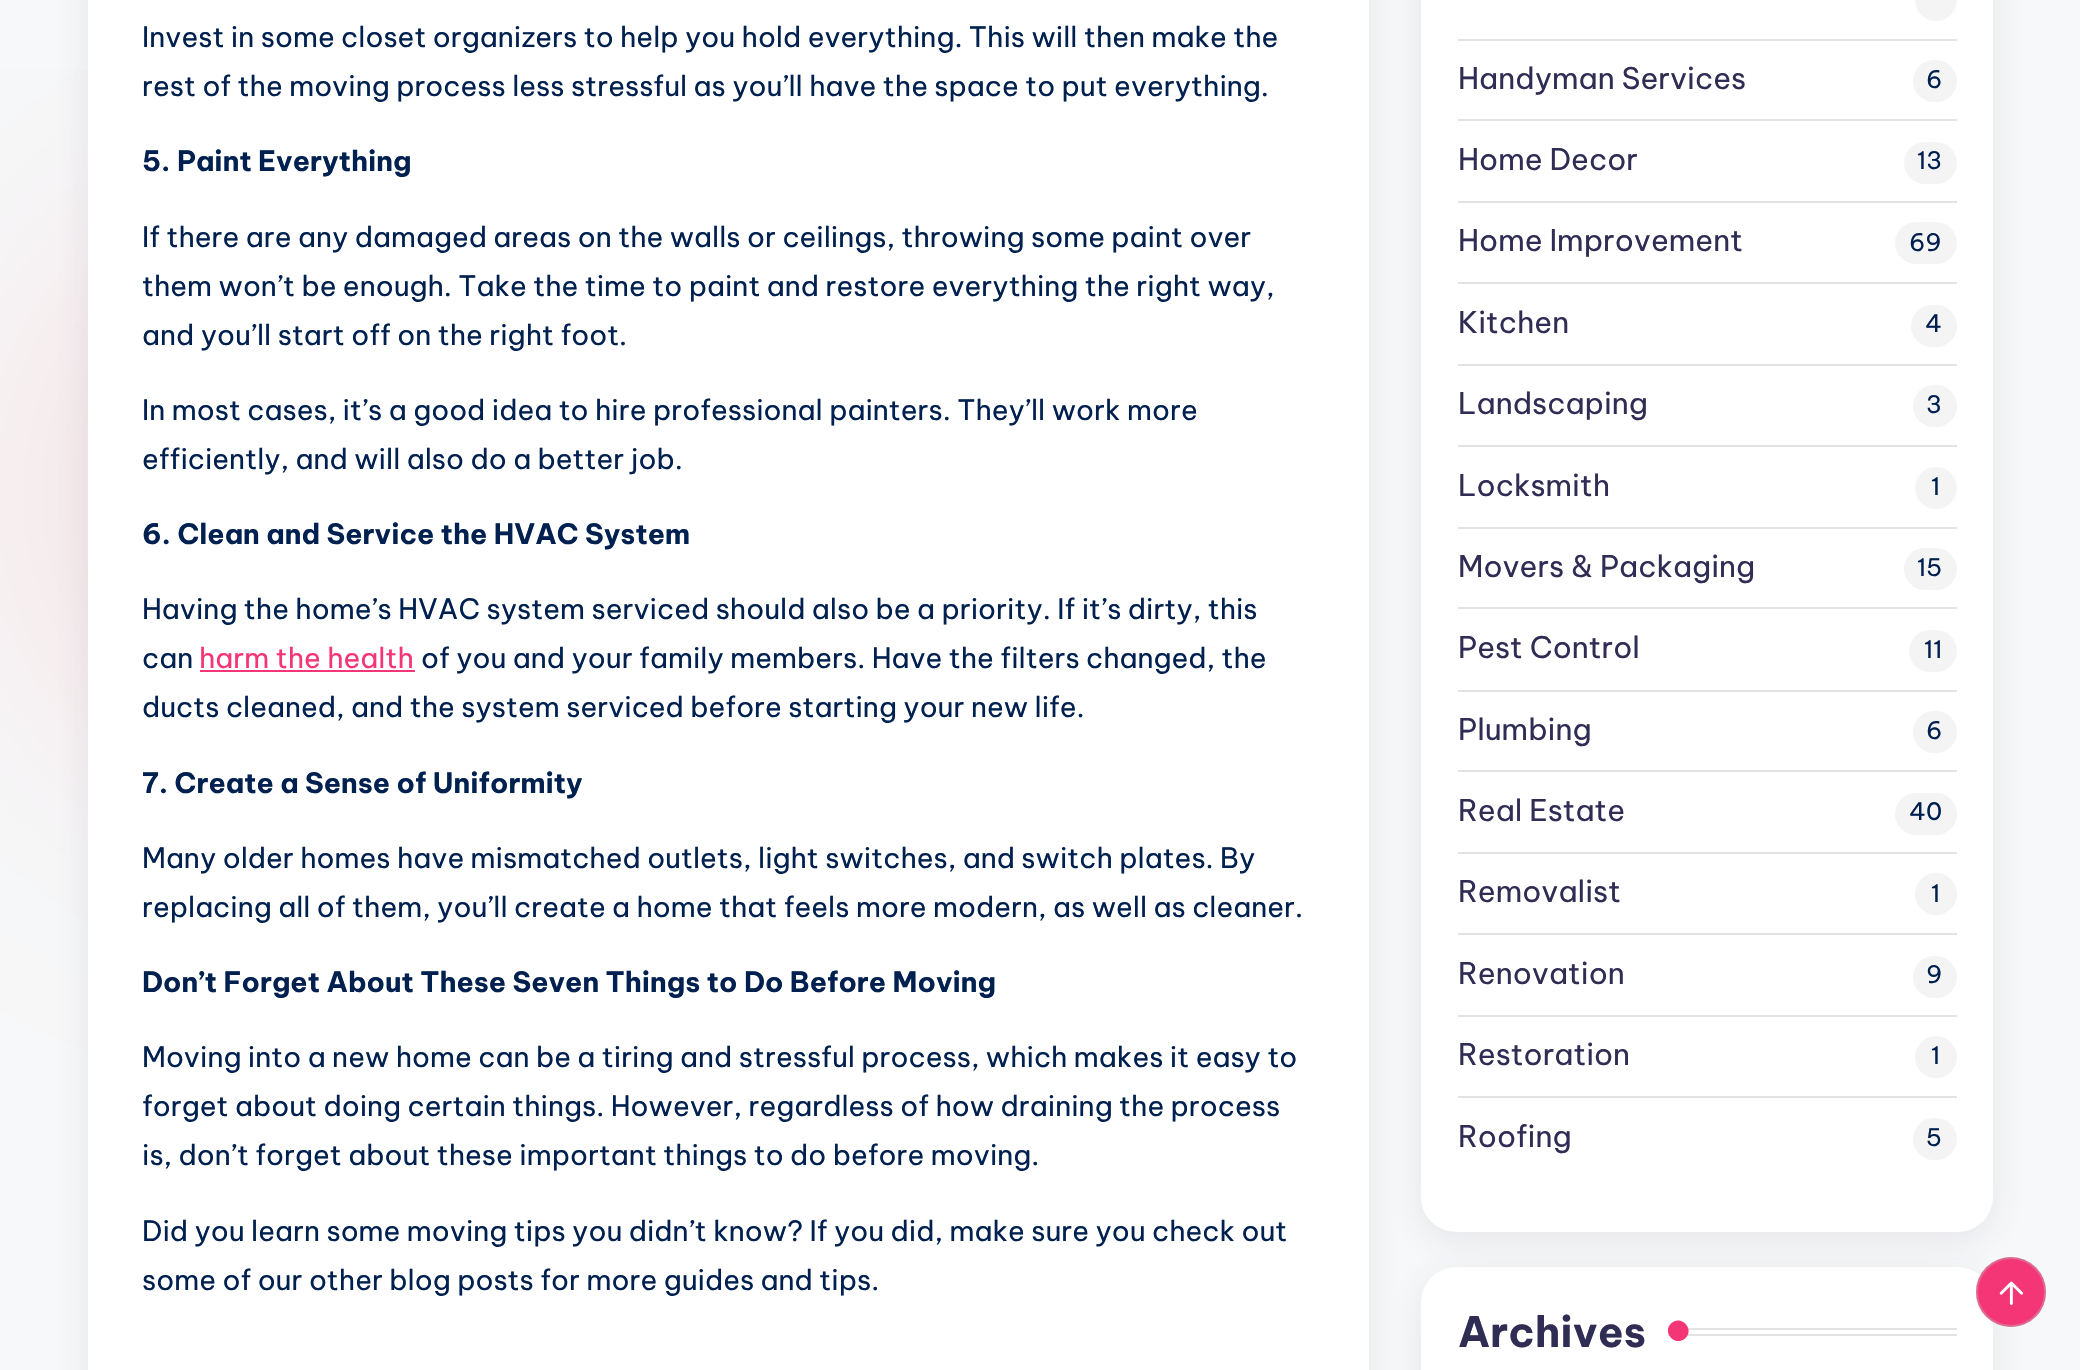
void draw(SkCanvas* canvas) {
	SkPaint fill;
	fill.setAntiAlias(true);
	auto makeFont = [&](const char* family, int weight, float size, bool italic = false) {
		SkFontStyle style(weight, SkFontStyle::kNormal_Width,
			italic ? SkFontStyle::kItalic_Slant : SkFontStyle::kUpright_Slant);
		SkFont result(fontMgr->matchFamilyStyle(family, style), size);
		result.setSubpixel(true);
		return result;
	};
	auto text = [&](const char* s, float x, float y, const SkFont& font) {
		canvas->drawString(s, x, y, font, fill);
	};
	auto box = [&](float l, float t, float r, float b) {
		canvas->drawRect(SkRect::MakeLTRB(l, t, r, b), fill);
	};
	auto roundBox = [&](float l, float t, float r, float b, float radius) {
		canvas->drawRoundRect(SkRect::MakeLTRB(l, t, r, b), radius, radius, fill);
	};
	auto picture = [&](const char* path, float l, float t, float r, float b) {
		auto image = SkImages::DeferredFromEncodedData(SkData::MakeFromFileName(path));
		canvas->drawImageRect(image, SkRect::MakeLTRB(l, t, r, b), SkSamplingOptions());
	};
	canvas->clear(0xFFF7F8F9);
	canvas->save();
	canvas->clipRect(SkRect::MakeLTRB(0, 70, 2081, 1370));
	fill.setColor(0xFFF5E5E7);
	fill.setMaskFilter(SkMaskFilter::MakeBlur(kNormal_SkBlurStyle, 112));
	canvas->drawRoundRect(SkRect::MakeLTRB(0, 158, 672, 830), 336, 336, fill);
	fill.setMaskFilter(nullptr);
	canvas->restore();
	fill.setColor(0x1A454360);
	fill.setMaskFilter(SkMaskFilter::MakeBlur(kNormal_SkBlurStyle, 17.5f));
	canvas->drawRoundRect(SkRect::MakeLTRB(88, -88, 1369, 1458), 35, 35, fill);
	fill.setMaskFilter(nullptr);
	fill.setColor(0xFFFFFFFF);
	box(88, 0, 1369, 1370);
	fill.setColor(0xFFF43676);
	box(200, 670, 415, 672);
	fill.setColor(0x1A454360);
	fill.setMaskFilter(SkMaskFilter::MakeBlur(kNormal_SkBlurStyle, 17.5f));
	canvas->drawRoundRect(SkRect::MakeLTRB(1421, -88, 1993, 1241), 35, 35, fill);
	fill.setMaskFilter(nullptr);
	fill.setColor(0xFFFFFFFF);
	roundBox(1421, -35, 1993, 1232, 35);
	fill.setColor(0xFFF4F4F4);
	canvas->drawCircle(1936, 0, 21, fill);
	fill.setColor(0xFFE3E3E3);
	box(1458, 39, 1957, 41);
	fill.setColor(0xFFF4F4F4);
	roundBox(1913, 60, 1957, 102, 21);
	fill.setColor(0xFFE3E3E3);
	box(1458, 119, 1957, 121);
	fill.setColor(0xFFF4F4F4);
	roundBox(1904, 142, 1957, 184, 21);
	fill.setColor(0xFFE3E3E3);
	box(1458, 201, 1957, 203);
	fill.setColor(0xFFF4F4F4);
	roundBox(1895, 222, 1957, 264, 21);
	fill.setColor(0xFFE3E3E3);
	box(1458, 282, 1957, 284);
	fill.setColor(0xFFF4F4F4);
	roundBox(1911, 305, 1957, 347, 21);
	fill.setColor(0xFFE3E3E3);
	box(1458, 364, 1957, 366);
	fill.setColor(0xFFF4F4F4);
	roundBox(1913, 385, 1957, 427, 21);
	fill.setColor(0xFFE3E3E3);
	box(1458, 445, 1957, 447);
	fill.setColor(0xFFF4F4F4);
	canvas->drawCircle(1936, 488, 21, fill);
	fill.setColor(0xFFE3E3E3);
	box(1458, 527, 1957, 529);
	fill.setColor(0xFFF4F4F4);
	roundBox(1904, 548, 1957, 590, 21);
	fill.setColor(0xFFE3E3E3);
	box(1458, 607, 1957, 609);
	fill.setColor(0xFFF4F4F4);
	roundBox(1909, 630, 1957, 672, 21);
	fill.setColor(0xFFE3E3E3);
	box(1458, 690, 1957, 692);
	fill.setColor(0xFFF4F4F4);
	roundBox(1913, 711, 1957, 753, 21);
	fill.setColor(0xFFE3E3E3);
	box(1458, 770, 1957, 772);
	fill.setColor(0xFFF4F4F4);
	roundBox(1895, 793, 1957, 835, 21);
	fill.setColor(0xFFE3E3E3);
	box(1458, 852, 1957, 854);
	fill.setColor(0xFFF4F4F4);
	canvas->drawCircle(1936, 894, 21, fill);
	fill.setColor(0xFFE3E3E3);
	box(1458, 933, 1957, 935);
	fill.setColor(0xFFF4F4F4);
	roundBox(1913, 956, 1957, 998, 21);
	fill.setColor(0xFFE3E3E3);
	box(1458, 1015, 1957, 1017);
	fill.setColor(0xFFF4F4F4);
	canvas->drawCircle(1936, 1057, 21, fill);
	fill.setColor(0xFFE3E3E3);
	box(1458, 1096, 1957, 1098);
	fill.setColor(0xFFF4F4F4);
	roundBox(1913, 1118, 1957, 1160, 21);
	fill.setColor(0x1A454360);
	fill.setMaskFilter(SkMaskFilter::MakeBlur(kNormal_SkBlurStyle, 17.5f));
	canvas->drawRoundRect(SkRect::MakeLTRB(1421, 1276, 1993, 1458), 35, 35, fill);
	fill.setMaskFilter(nullptr);
	fill.setColor(0xFFFFFFFF);
	roundBox(1421, 1267, 1993, 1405, 35);
	fill.setColor(0xFFE3E3E3);
	box(1668, 1328, 1957, 1330);
	box(1668, 1334, 1957, 1336);
	fill.setColor(0xFFF43676);
	canvas->drawPath(SkPathBuilder().moveTo(1671, 1323.5f).cubicTo(1680.5f, 1314, 1695, 1328.5f, 1685.5f, 1338).cubicTo(1676, 1347.5f, 1661.5f, 1333, 1671, 1323.5f).close().detach(), fill);
	canvas->drawCircle(2011, 1292, 35, fill);
	fill.setStyle(SkPaint::kStroke_Style);
	fill.setStrokeWidth(2);
	fill.setColor(0x66B9B9B9);
	canvas->drawCircle(2011, 1292, 34, fill);
	picture("image0.png", 1999, 1281, 2023, 1305);
	auto font1 = makeFont("Be Vietnam Pro", 400, 28);
	fill.setStyle(SkPaint::kFill_Style);
	fill.setColor(0xFF002050);
	text("Invest in some closet organizers to help you hold everything. This will then make the", 142, 47, font1);
	text("rest of the moving process less stressful as you’ll have the space to put everything.", 142, 96, font1);
	auto font2 = makeFont("Be Vietnam Pro", 700, 28);
	text("5. Paint Everything", 142, 171, font2);
	text("If there are any damaged areas on the walls or ceilings, throwing some paint over", 142, 247, font1);
	text("them won’t be enough. Take the time to paint and restore everything the right way,", 142, 296, font1);
	text("and you’ll start off on the right foot.", 142, 345, font1);
	text("In most cases, it’s a good idea to hire professional painters. They’ll work more", 142, 420, font1);
	text("efficiently, and will also do a better job.", 142, 469, font1);
	text("6. Clean and Service the HVAC System", 142, 544, font2);
	text("Having the home’s HVAC system serviced should also be a priority. If it’s dirty, this", 142, 619, font1);
	text("can", 142, 668, font1);
	fill.setColor(0xFFF43676);
	text("harm the health", 199, 668, font1);
	fill.setColor(0xFF002050);
	text("of you and your family members. Have the filters changed, the", 421, 668, font1);
	text("ducts cleaned, and the system serviced before starting your new life.", 142, 717, font1);
	text("7. Create a Sense of Uniformity", 142, 793, font2);
	text("Many older homes have mismatched outlets, light switches, and switch plates. By", 142, 868, font1);
	text("replacing all of them, you’ll create a home that feels more modern, as well as cleaner.", 142, 917, font1);
	text("Don’t Forget About These Seven Things to Do Before Moving", 142, 992, font2);
	text("Moving into a new home can be a tiring and stressful process, which makes it easy to", 142, 1067, font1);
	text("forget about doing certain things. However, regardless of how draining the process", 142, 1116, font1);
	text("is, don’t forget about these important things to do before moving.", 142, 1165, font1);
	text("Did you learn some moving tips you didn’t know? If you did, make sure you check out", 142, 1241, font1);
	text("some of our other blog posts for more guides and tips.", 142, 1290, font1);
	auto font3 = makeFont("Be Vietnam Pro", 400, 29.75f);
	fill.setColor(0xFF302D55);
	text("Handyman Services", 1458, 89, font3);
	auto font4 = makeFont("Be Vietnam Pro", 400, 24);
	fill.setColor(0xFF002050);
	text("6", 1926, 88, font4);
	fill.setColor(0xFF302D55);
	text("Home Decor", 1458, 170, font3);
	fill.setColor(0xFF002050);
	text("13", 1917, 169, font4);
	fill.setColor(0xFF302D55);
	text("Home Improvement", 1458, 251, font3);
	fill.setColor(0xFF002050);
	text("69", 1909, 251, font4);
	fill.setColor(0xFF302D55);
	text("Kitchen", 1458, 333, font3);
	fill.setColor(0xFF002050);
	text("4", 1925, 332, font4);
	fill.setColor(0xFF302D55);
	text("Landscaping", 1458, 414, font3);
	fill.setColor(0xFF002050);
	text("3", 1926, 413, font4);
	fill.setColor(0xFF302D55);
	text("Locksmith", 1458, 496, font3);
	fill.setColor(0xFF002050);
	text("1", 1931, 495, font4);
	fill.setColor(0xFF302D55);
	text("Movers & Packaging", 1458, 577, font3);
	fill.setColor(0xFF002050);
	text("15", 1917, 576, font4);
	fill.setColor(0xFF302D55);
	text("Pest Control", 1458, 658, font3);
	fill.setColor(0xFF002050);
	text("11", 1924, 658, font4);
	fill.setColor(0xFF302D55);
	text("Plumbing", 1458, 740, font3);
	fill.setColor(0xFF002050);
	text("6", 1926, 739, font4);
	fill.setColor(0xFF302D55);
	text("Real Estate", 1458, 821, font3);
	fill.setColor(0xFF002050);
	text("40", 1909, 820, font4);
	fill.setColor(0xFF302D55);
	text("Removalist", 1458, 902, font3);
	fill.setColor(0xFF002050);
	text("1", 1931, 902, font4);
	fill.setColor(0xFF302D55);
	text("Renovation", 1458, 984, font3);
	fill.setColor(0xFF002050);
	text("9", 1926, 983, font4);
	fill.setColor(0xFF302D55);
	text("Restoration", 1458, 1065, font3);
	fill.setColor(0xFF002050);
	text("1", 1931, 1064, font4);
	fill.setColor(0xFF302D55);
	text("Roofing", 1458, 1147, font3);
	fill.setColor(0xFF002050);
	text("5", 1926, 1146, font4);
	auto font5 = makeFont("Be Vietnam Pro", 700, 42);
	fill.setColor(0xFF302D55);
	text("Archives", 1458, 1347, font5);
}
